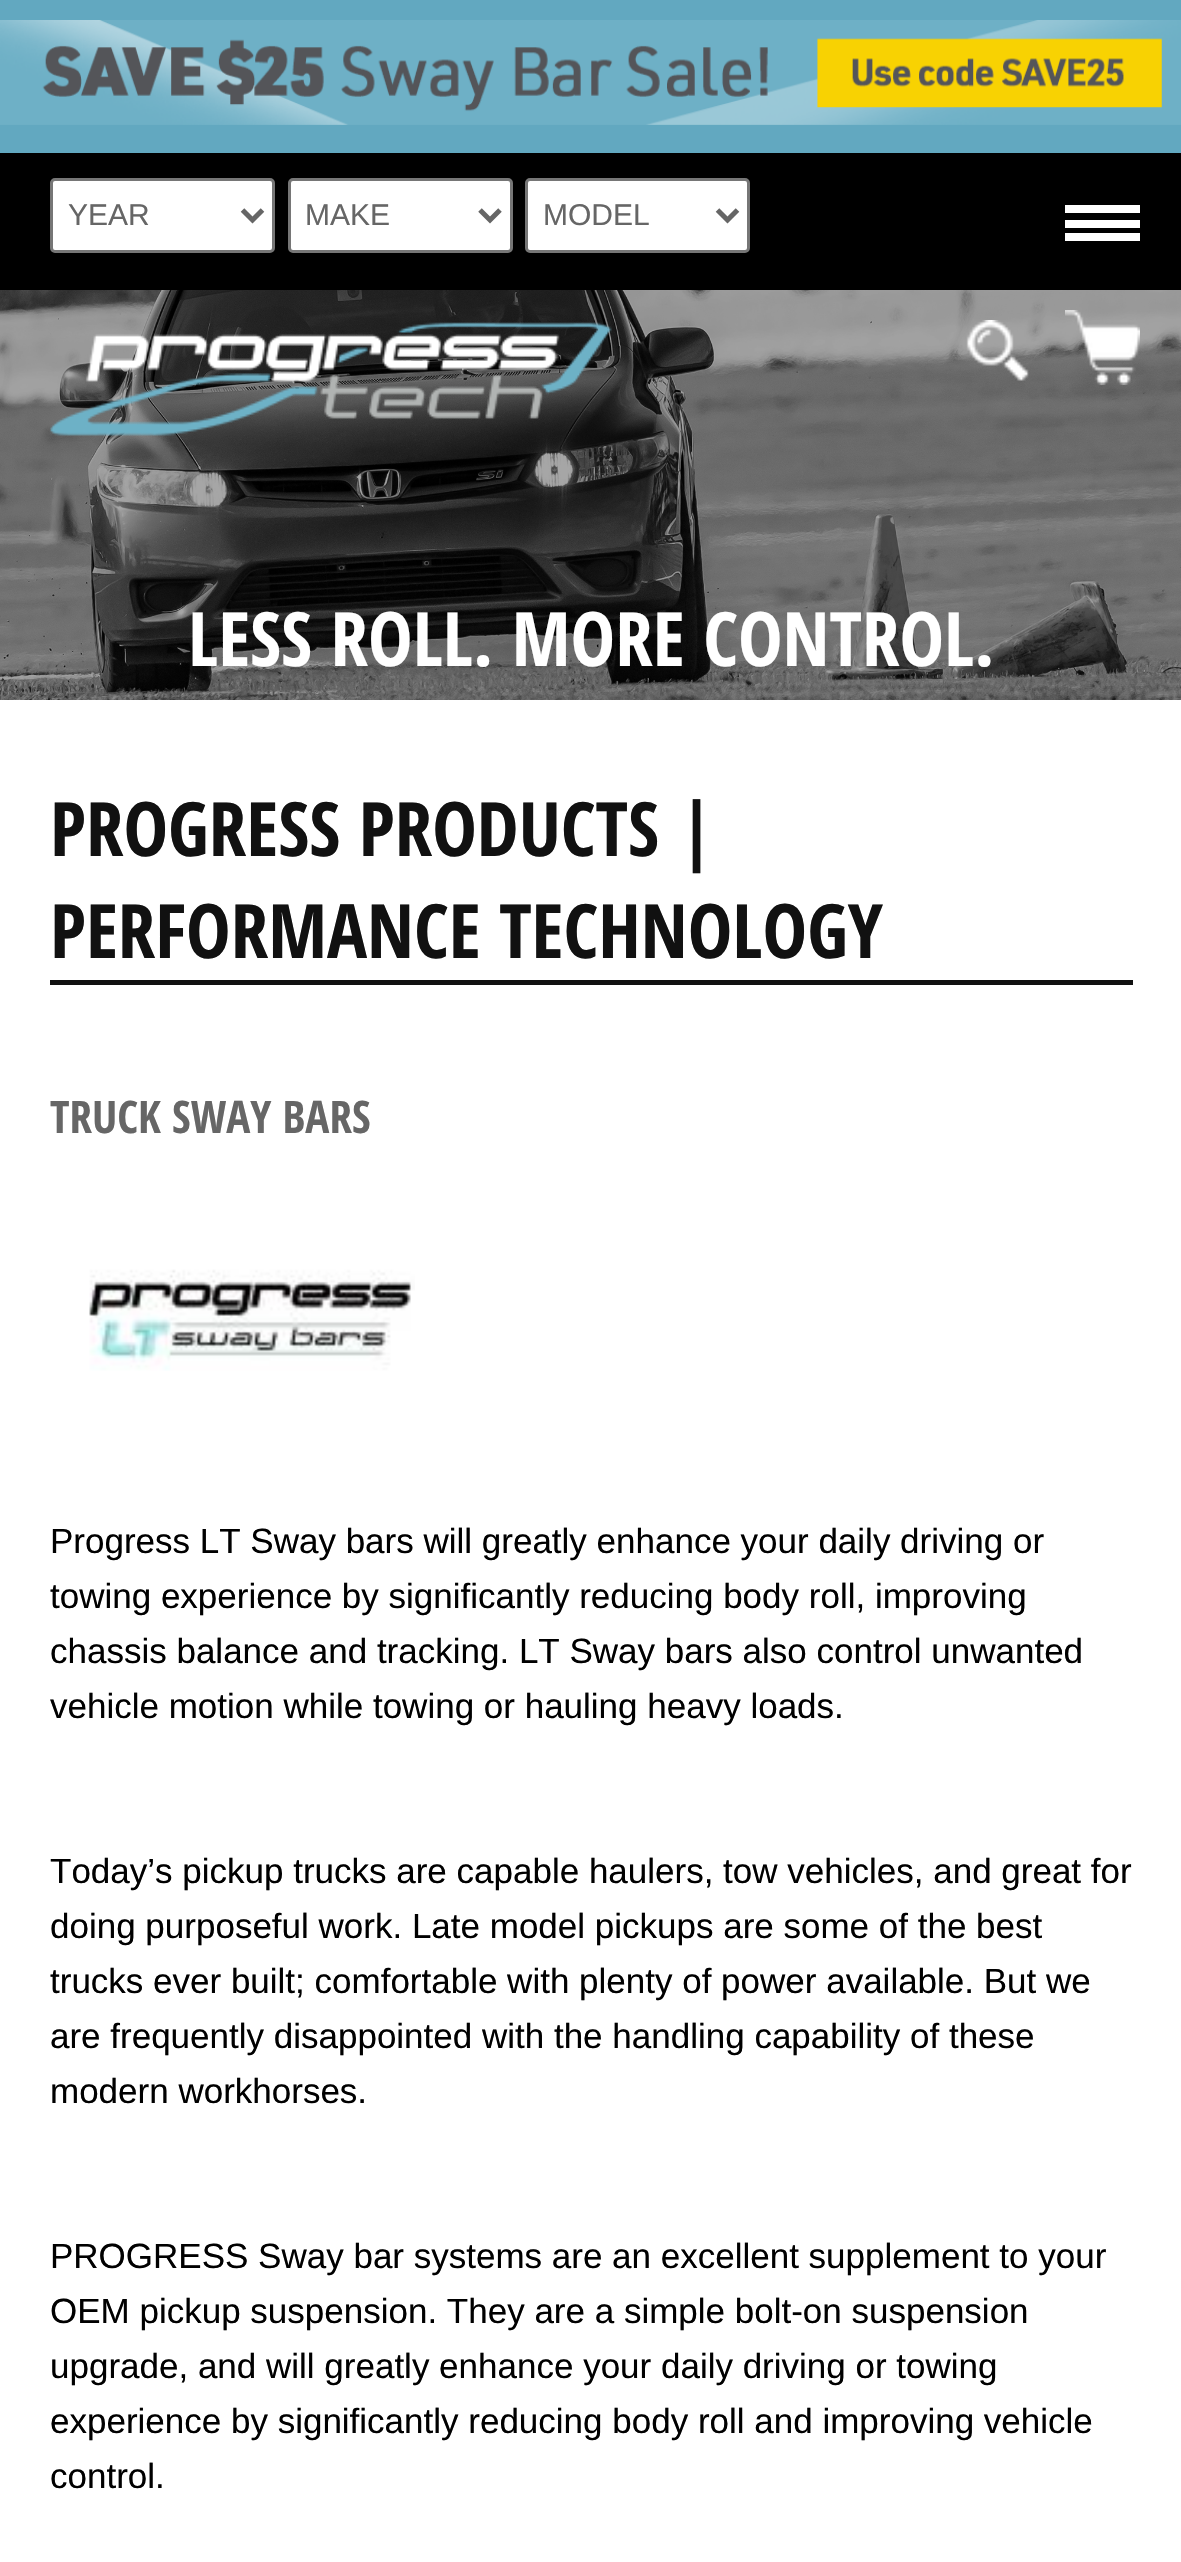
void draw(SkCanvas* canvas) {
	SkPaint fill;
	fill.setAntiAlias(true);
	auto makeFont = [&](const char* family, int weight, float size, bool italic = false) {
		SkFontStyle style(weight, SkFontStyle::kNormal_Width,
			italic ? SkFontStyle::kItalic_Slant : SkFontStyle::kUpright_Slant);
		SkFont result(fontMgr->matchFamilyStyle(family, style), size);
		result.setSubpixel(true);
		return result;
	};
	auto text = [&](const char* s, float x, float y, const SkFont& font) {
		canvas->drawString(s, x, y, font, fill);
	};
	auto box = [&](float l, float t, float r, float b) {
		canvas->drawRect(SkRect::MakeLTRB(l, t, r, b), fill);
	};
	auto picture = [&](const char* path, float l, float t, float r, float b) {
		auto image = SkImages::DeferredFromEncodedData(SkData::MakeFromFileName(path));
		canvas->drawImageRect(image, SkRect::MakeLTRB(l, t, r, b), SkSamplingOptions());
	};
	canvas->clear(0xFFFFFFFF);
	fill.setColor(0xFF62A8C0);
	box(0, 0, 1181, 153);
	picture("image0.png", 0, 20, 1181, 125);
	fill.setColor(0xFF000000);
	box(0, 153, 1181, 290);
	fill.setColor(0xFFFFFFFF);
	canvas->drawRoundRect(SkRect::MakeLTRB(51.5f, 179.5f, 273.5f, 251.5f), 3.5f, 3.5f, fill);
	fill.setStyle(SkPaint::kStroke_Style);
	fill.setStrokeWidth(3);
	fill.setColor(0xFF767676);
	canvas->drawRoundRect(SkRect::MakeLTRB(51.5f, 179.5f, 273.5f, 251.5f), 3.5f, 3.5f, fill);
	fill.setStrokeWidth(5);
	fill.setColor(0xFF666666);
	canvas->drawPath(SkPathBuilder().moveTo(242.5f, 210).lineTo(252.5f, 220).lineTo(262.5f, 210).detach(), fill);
	fill.setStyle(SkPaint::kFill_Style);
	fill.setColor(0xFFFFFFFF);
	canvas->drawRoundRect(SkRect::MakeLTRB(289.5f, 179.5f, 511.5f, 251.5f), 3.5f, 3.5f, fill);
	fill.setStyle(SkPaint::kStroke_Style);
	fill.setStrokeWidth(3);
	fill.setColor(0xFF767676);
	canvas->drawRoundRect(SkRect::MakeLTRB(289.5f, 179.5f, 511.5f, 251.5f), 3.5f, 3.5f, fill);
	fill.setStrokeWidth(5);
	fill.setColor(0xFF666666);
	canvas->drawPath(SkPathBuilder().moveTo(480, 210).lineTo(490, 220).lineTo(500, 210).detach(), fill);
	fill.setStyle(SkPaint::kFill_Style);
	fill.setColor(0xFFFFFFFF);
	canvas->drawRoundRect(SkRect::MakeLTRB(526.5f, 179.5f, 748.5f, 251.5f), 3.5f, 3.5f, fill);
	fill.setStyle(SkPaint::kStroke_Style);
	fill.setStrokeWidth(3);
	fill.setColor(0xFF767676);
	canvas->drawRoundRect(SkRect::MakeLTRB(526.5f, 179.5f, 748.5f, 251.5f), 3.5f, 3.5f, fill);
	fill.setStrokeWidth(5);
	fill.setColor(0xFF666666);
	canvas->drawPath(SkPathBuilder().moveTo(717.5f, 210).lineTo(727.5f, 220).lineTo(737.5f, 210).detach(), fill);
	fill.setStyle(SkPaint::kFill_Style);
	fill.setColor(0xFFFFFFFF);
	box(1065, 205, 1140, 213);
	box(1065, 220, 1140, 228);
	box(1065, 233, 1140, 241);
	picture("image1.png", 0, 290, 1181, 700);
	picture("image2.png", 50, 322, 612, 436);
	picture("image3.png", 966, 320, 1029, 381);
	picture("image4.png", 1065, 310, 1140, 385);
	fill.setColor(0xFF111111);
	box(50, 980, 1133, 985);
	picture("image5.png", 89, 1269, 415, 1371);
	auto font1 = makeFont("Liberation Sans", 400, 30);
	fill.setColor(0xFF666666);
	text("YEAR", 68, 225, font1);
	text("MAKE", 305, 225, font1);
	text("MODEL", 543, 225, font1);
	auto font2 = makeFont("Open Sans Condensed", 700, 75);
	fill.setColor(0xFFFFFFFF);
	text("LESS ROLL. MORE CONTROL.", 188, 666, font2);
	fill.setColor(0xFF111111);
	text("PROGRESS PRODUCTS |", 50, 856, font2);
	text("PERFORMANCE TECHNOLOGY", 50, 958, font2);
	auto font3 = makeFont("Open Sans Condensed", 700, 45);
	fill.setColor(0xFF666666);
	text("TRUCK SWAY BARS", 50, 1133, font3);
	auto font4 = makeFont("Liberation Sans", 400, 35);
	fill.setColor(0xFF000000);
	text("Progress LT Sway bars will greatly enhance your daily driving or", 50, 1553, font4);
	text("towing experience by significantly reducing body roll, improving", 50, 1608, font4);
	text("chassis balance and tracking. LT Sway bars also control unwanted", 50, 1663, font4);
	text("vehicle motion while towing or hauling heavy loads.", 50, 1718, font4);
	text("Today’s pickup trucks are capable haulers, tow vehicles, and great for", 50, 1883, font4);
	text("doing purposeful work. Late model pickups are some of the best", 50, 1938, font4);
	text("trucks ever built; comfortable with plenty of power available. But we", 50, 1993, font4);
	text("are frequently disappointed with the handling capability of these", 50, 2048, font4);
	text("modern workhorses.", 50, 2103, font4);
	text("PROGRESS Sway bar systems are an excellent supplement to your", 50, 2268, font4);
	text("OEM pickup suspension. They are a simple bolt-on suspension", 50, 2323, font4);
	text("upgrade, and will greatly enhance your daily driving or towing", 50, 2378, font4);
	text("experience by significantly reducing body roll and improving vehicle", 50, 2433, font4);
	text("control.", 50, 2488, font4);
}
